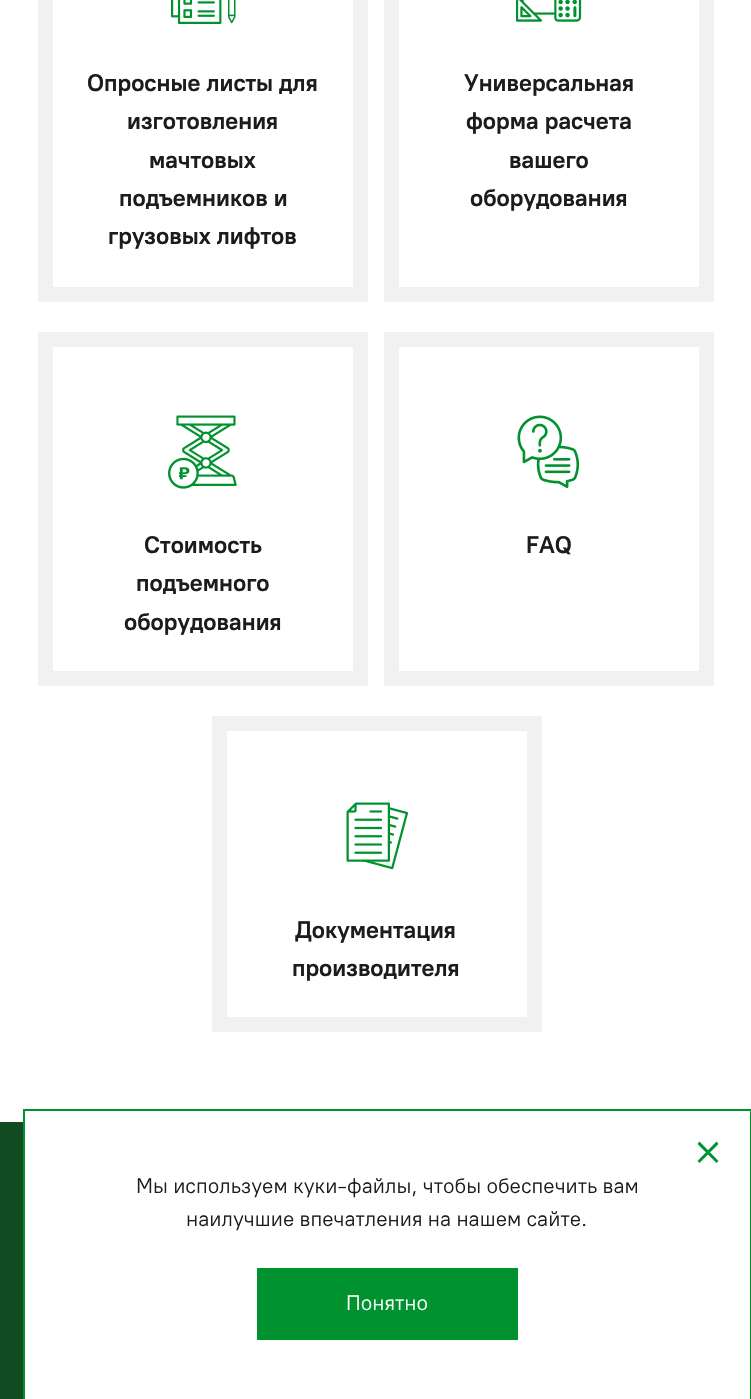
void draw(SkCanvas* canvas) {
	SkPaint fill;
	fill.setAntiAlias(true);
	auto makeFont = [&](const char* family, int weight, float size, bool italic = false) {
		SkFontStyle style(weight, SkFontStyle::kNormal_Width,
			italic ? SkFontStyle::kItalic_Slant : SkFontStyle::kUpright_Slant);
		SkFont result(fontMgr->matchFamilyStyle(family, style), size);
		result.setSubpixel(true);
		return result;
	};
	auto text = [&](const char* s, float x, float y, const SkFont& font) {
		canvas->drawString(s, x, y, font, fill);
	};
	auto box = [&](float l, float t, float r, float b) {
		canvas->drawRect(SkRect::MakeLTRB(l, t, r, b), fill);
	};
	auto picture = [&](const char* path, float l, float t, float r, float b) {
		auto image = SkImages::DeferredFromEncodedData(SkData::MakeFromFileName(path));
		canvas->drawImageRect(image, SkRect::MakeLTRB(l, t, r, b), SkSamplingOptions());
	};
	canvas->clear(0xFFFFFFFF);
	fill.setStyle(SkPaint::kStroke_Style);
	fill.setStrokeWidth(15);
	fill.setColor(0xFFF1F1F1);
	canvas->drawRect(SkRect::MakeLTRB(45.5f, -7.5f, 360.5f, 294.5f), fill);
	picture("image0.png", 171, 0, 236, 24);
	canvas->drawRect(SkRect::MakeLTRB(391.5f, -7.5f, 706.5f, 294.5f), fill);
	picture("image1.png", 516, 0, 582, 22);
	canvas->drawRect(SkRect::MakeLTRB(45.5f, 339.5f, 360.5f, 678.5f), fill);
	picture("image2.png", 168, 415, 237, 489);
	canvas->drawRect(SkRect::MakeLTRB(391.5f, 339.5f, 706.5f, 678.5f), fill);
	picture("image3.png", 517, 415, 580, 489);
	canvas->drawRect(SkRect::MakeLTRB(219.5f, 723.5f, 534.5f, 1024.5f), fill);
	picture("image4.png", 346, 802, 408, 870);
	fill.setStyle(SkPaint::kFill_Style);
	fill.setColor(0xFF114B21);
	box(0, 1122, 23, 1399);
	fill.setColor(0xFF00922E);
	box(23, 1109, 751, 1111);
	box(750, 1109, 751, 1399);
	box(23, 1109, 25, 1399);
	canvas->drawPath(SkPathBuilder().moveTo(699.5f, 1141.5f).lineTo(718.5f, 1161).lineTo(716.5f, 1163).lineTo(697.5f, 1144).close().detach(), fill);
	canvas->drawPath(SkPathBuilder().moveTo(697.5f, 1161).lineTo(716.5f, 1141.5f).lineTo(718.5f, 1144).lineTo(699.5f, 1163).close().detach(), fill);
	box(257, 1268, 518, 1340);
	auto font1 = makeFont("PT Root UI", 700, 24);
	fill.setColor(0xFF1C1C1C);
	text("Опросные листы для", 87, 91, font1);
	text("изготовления", 127, 129, font1);
	text("мачтовых", 149, 168, font1);
	text("подъемников и", 119, 206, font1);
	text("грузовых лифтов", 108, 244, font1);
	text("Универсальная", 464, 91, font1);
	text("форма расчета", 466, 129, font1);
	text("вашего", 509, 168, font1);
	text("оборудования", 470, 206, font1);
	text("Стоимость", 144, 553, font1);
	text("подъемного", 136, 591, font1);
	text("оборудования", 124, 630, font1);
	text("FAQ", 526, 553, font1);
	text("Документация", 295, 938, font1);
	text("производителя", 292, 976, font1);
	auto font2 = makeFont("PT Root UI", 400, 21);
	text("Мы используем куки-файлы, чтобы обеспечить вам", 136, 1193, font2);
	text("наилучшие впечатления на нашем сайте.", 186, 1226, font2);
	fill.setColor(0xFFFFFFFF);
	text("Понятно", 346, 1310, font2);
}
